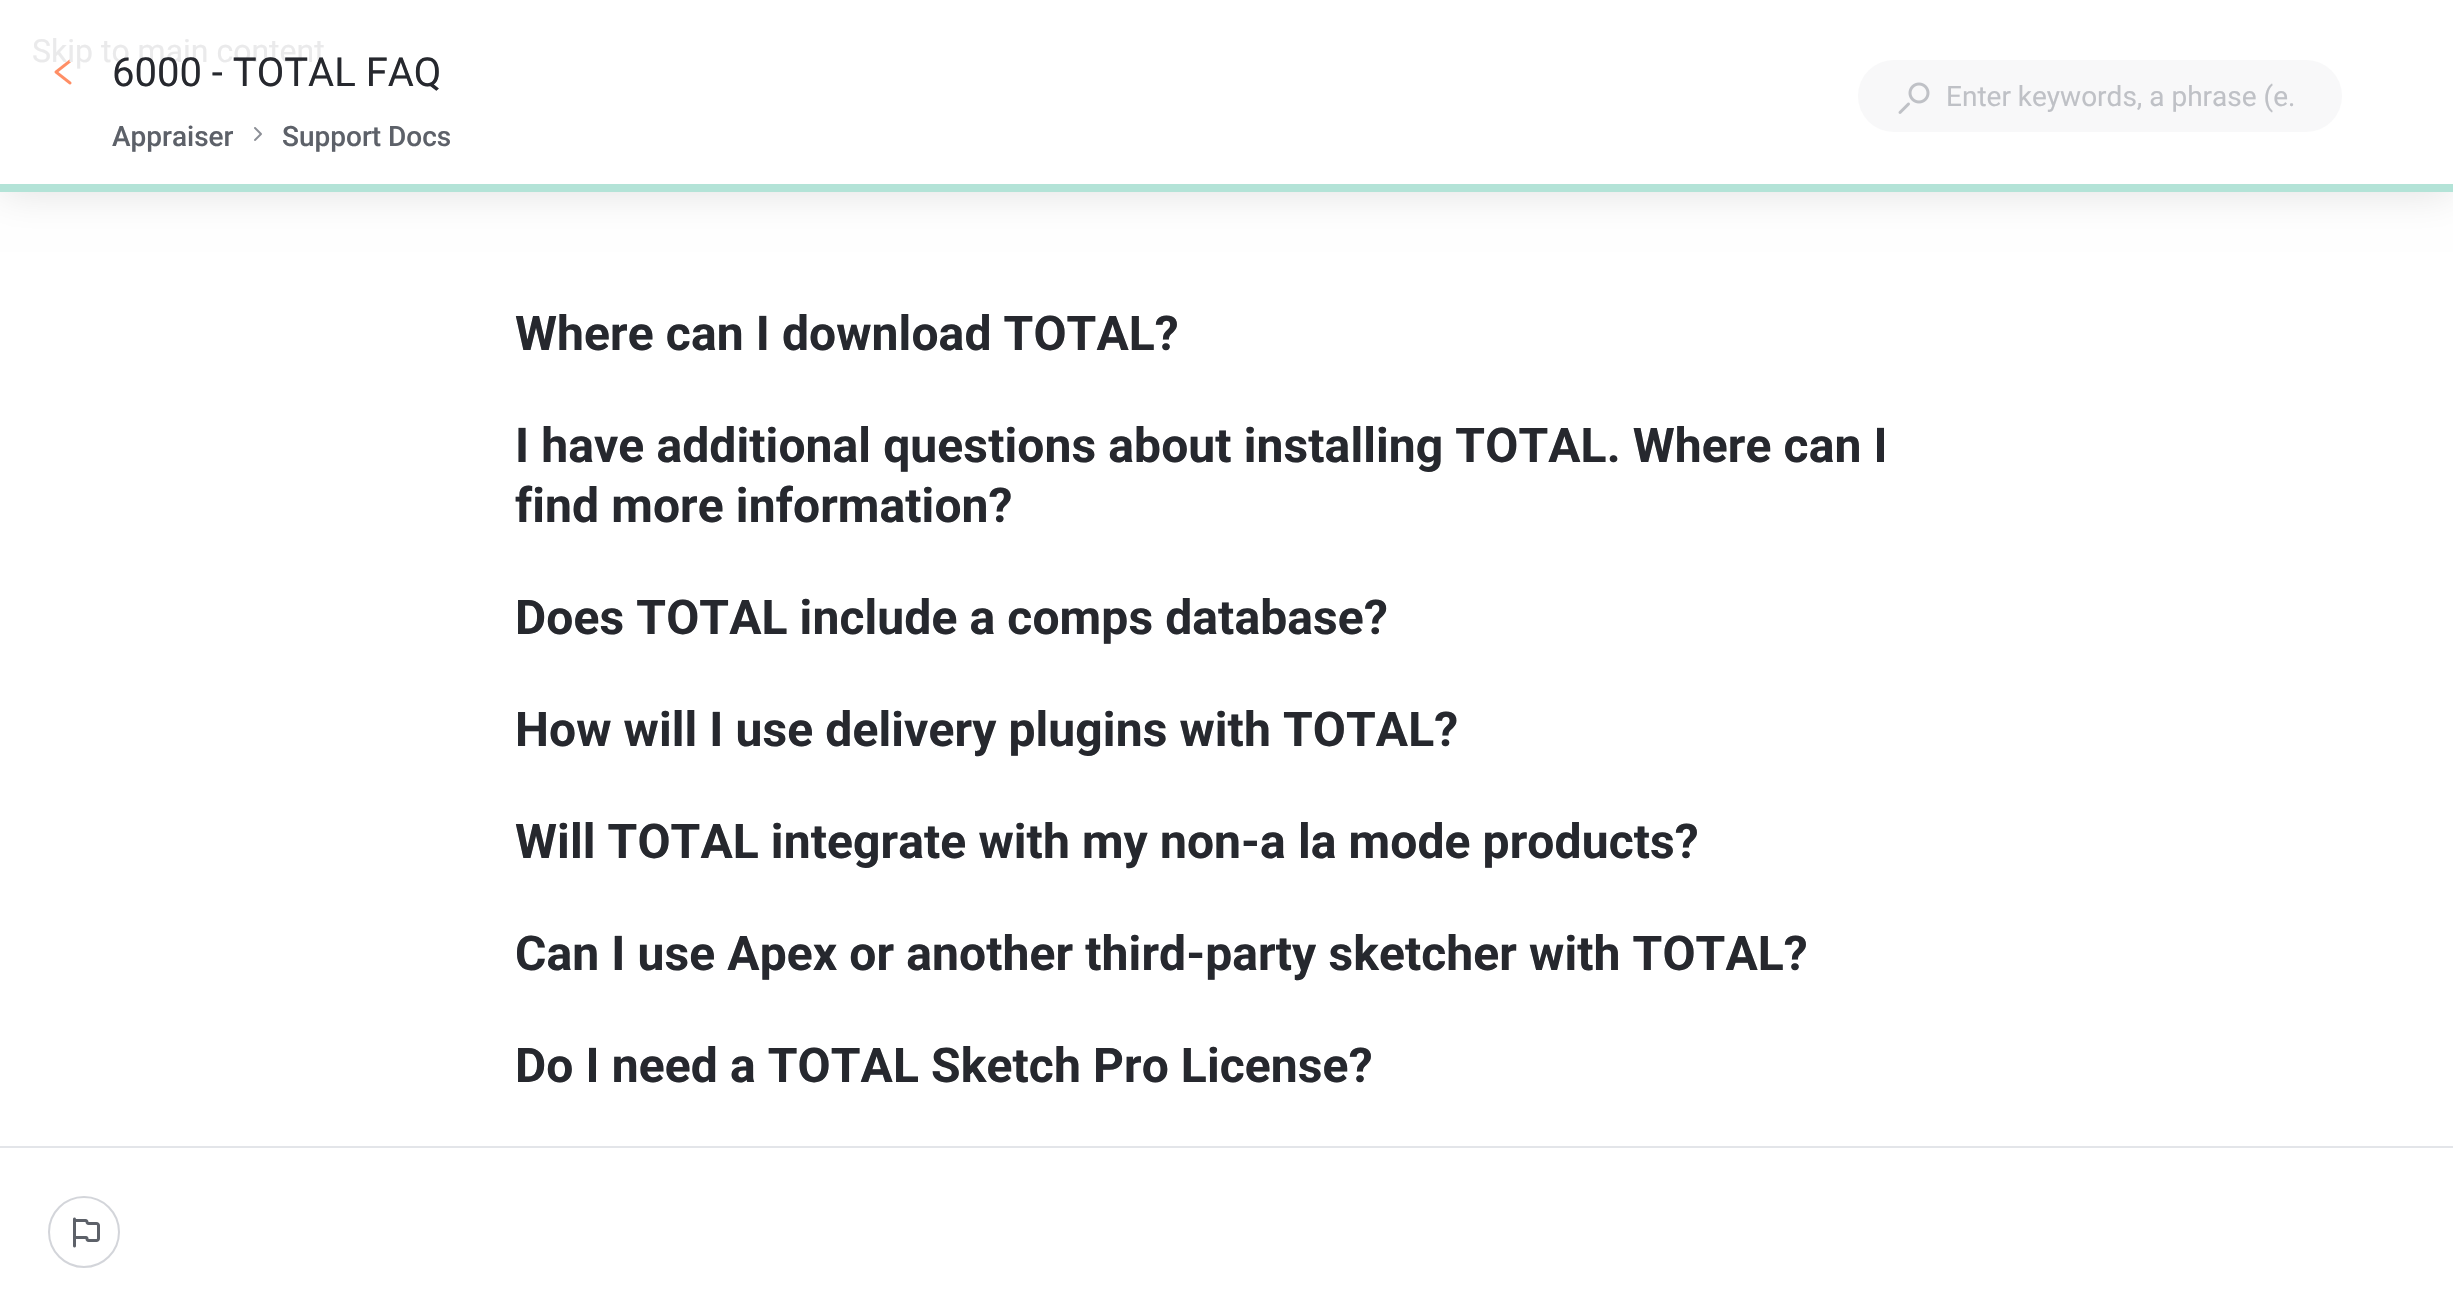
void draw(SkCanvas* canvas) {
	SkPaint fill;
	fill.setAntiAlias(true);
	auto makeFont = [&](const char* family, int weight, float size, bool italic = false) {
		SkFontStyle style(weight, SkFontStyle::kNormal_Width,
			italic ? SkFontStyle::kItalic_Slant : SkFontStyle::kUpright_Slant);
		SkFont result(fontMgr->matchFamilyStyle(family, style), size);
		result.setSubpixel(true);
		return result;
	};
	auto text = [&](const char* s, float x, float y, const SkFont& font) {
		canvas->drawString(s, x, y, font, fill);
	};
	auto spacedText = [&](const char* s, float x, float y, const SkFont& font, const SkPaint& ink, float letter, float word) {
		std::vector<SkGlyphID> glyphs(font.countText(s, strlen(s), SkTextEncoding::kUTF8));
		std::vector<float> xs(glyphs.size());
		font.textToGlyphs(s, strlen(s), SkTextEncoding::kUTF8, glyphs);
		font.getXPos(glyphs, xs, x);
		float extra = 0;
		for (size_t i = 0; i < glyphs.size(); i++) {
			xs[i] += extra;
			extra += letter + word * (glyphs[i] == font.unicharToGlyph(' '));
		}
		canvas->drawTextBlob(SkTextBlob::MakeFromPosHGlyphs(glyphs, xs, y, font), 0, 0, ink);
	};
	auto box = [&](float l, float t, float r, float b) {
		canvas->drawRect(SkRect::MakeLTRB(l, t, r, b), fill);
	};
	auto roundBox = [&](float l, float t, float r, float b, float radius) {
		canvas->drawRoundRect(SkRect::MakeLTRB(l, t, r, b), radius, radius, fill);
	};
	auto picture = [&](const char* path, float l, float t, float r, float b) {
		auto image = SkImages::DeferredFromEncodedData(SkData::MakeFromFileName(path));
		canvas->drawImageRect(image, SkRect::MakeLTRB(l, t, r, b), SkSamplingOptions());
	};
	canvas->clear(0xFFFFFFFF);
	fill.setColor(0x1F000000);
	fill.setMaskFilter(SkMaskFilter::MakeBlur(kNormal_SkBlurStyle, 20));
	canvas->drawRect(SkRect::MakeLTRB(0, 0, 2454, 192), fill);
	fill.setMaskFilter(nullptr);
	fill.setColor(0xFFFFFFFF);
	box(0, 0, 2453, 184);
	picture("image0.png", 54, 59, 72, 85);
	picture("image1.png", 254, 127, 262, 141);
	fill.setColor(0xFFF8F8F9);
	roundBox(1858, 60, 2342, 132, 36);
	picture("image2.png", 1898, 82, 1930, 114);
	fill.setColor(0xFFB3E3D7);
	box(0, 184, 2453, 192);
	fill.setColor(0xFFE3E5E9);
	box(0, 1146, 2453, 1148);
	fill.setStyle(SkPaint::kStroke_Style);
	fill.setStrokeWidth(2);
	fill.setColor(0xFFD3D5DA);
	canvas->drawCircle(84, 1232, 35, fill);
	picture("image3.png", 73, 1217, 100, 1248);
	auto font1 = makeFont("Roboto", 400, 32);
	fill.setStyle(SkPaint::kFill_Style);
	fill.setColor(0xFFEAEAEB);
	text("Skip to main content", 32, 62, font1);
	auto font2 = makeFont("Roboto", 400, 40);
	fill.setColor(0xFF26282E);
	text("6000 - TOTAL FAQ", 112, 86, font2);
	auto font3 = makeFont("Roboto", 500, 28);
	fill.setColor(0xFF5D6169);
	text("Appraiser", 112, 146, font3);
	text("Support Docs", 282, 146, font3);
	auto font4 = makeFont("Roboto", 400, 28);
	fill.setColor(0xFFBFC1C6);
	text("Enter keywords, a phrase (e.", 1946, 106, font4);
	auto font5 = makeFont("Roboto", 700, 48);
	fill.setColor(0xFF26282E);
	spacedText("Where can I download TOTAL?", 515, 350, font5, fill, 0.1f, 0);
	spacedText("I have additional questions about installing TOTAL. Where can I", 515, 462, font5, fill, 0.1f, 0);
	spacedText("find more information?", 515, 522, font5, fill, 0.1f, 0);
	spacedText("Does TOTAL include a comps database?", 515, 634, font5, fill, 0.1f, 0);
	spacedText("How will I use delivery plugins with TOTAL?", 515, 746, font5, fill, 0.1f, 0);
	spacedText("Will TOTAL integrate with my non‑a la mode products?", 515, 858, font5, fill, 0.1f, 0);
	spacedText("Can I use Apex or another third‑party sketcher with TOTAL?", 515, 970, font5, fill, 0.1f, 0);
	spacedText("Do I need a TOTAL Sketch Pro License?", 515, 1082, font5, fill, 0.1f, 0);
}
